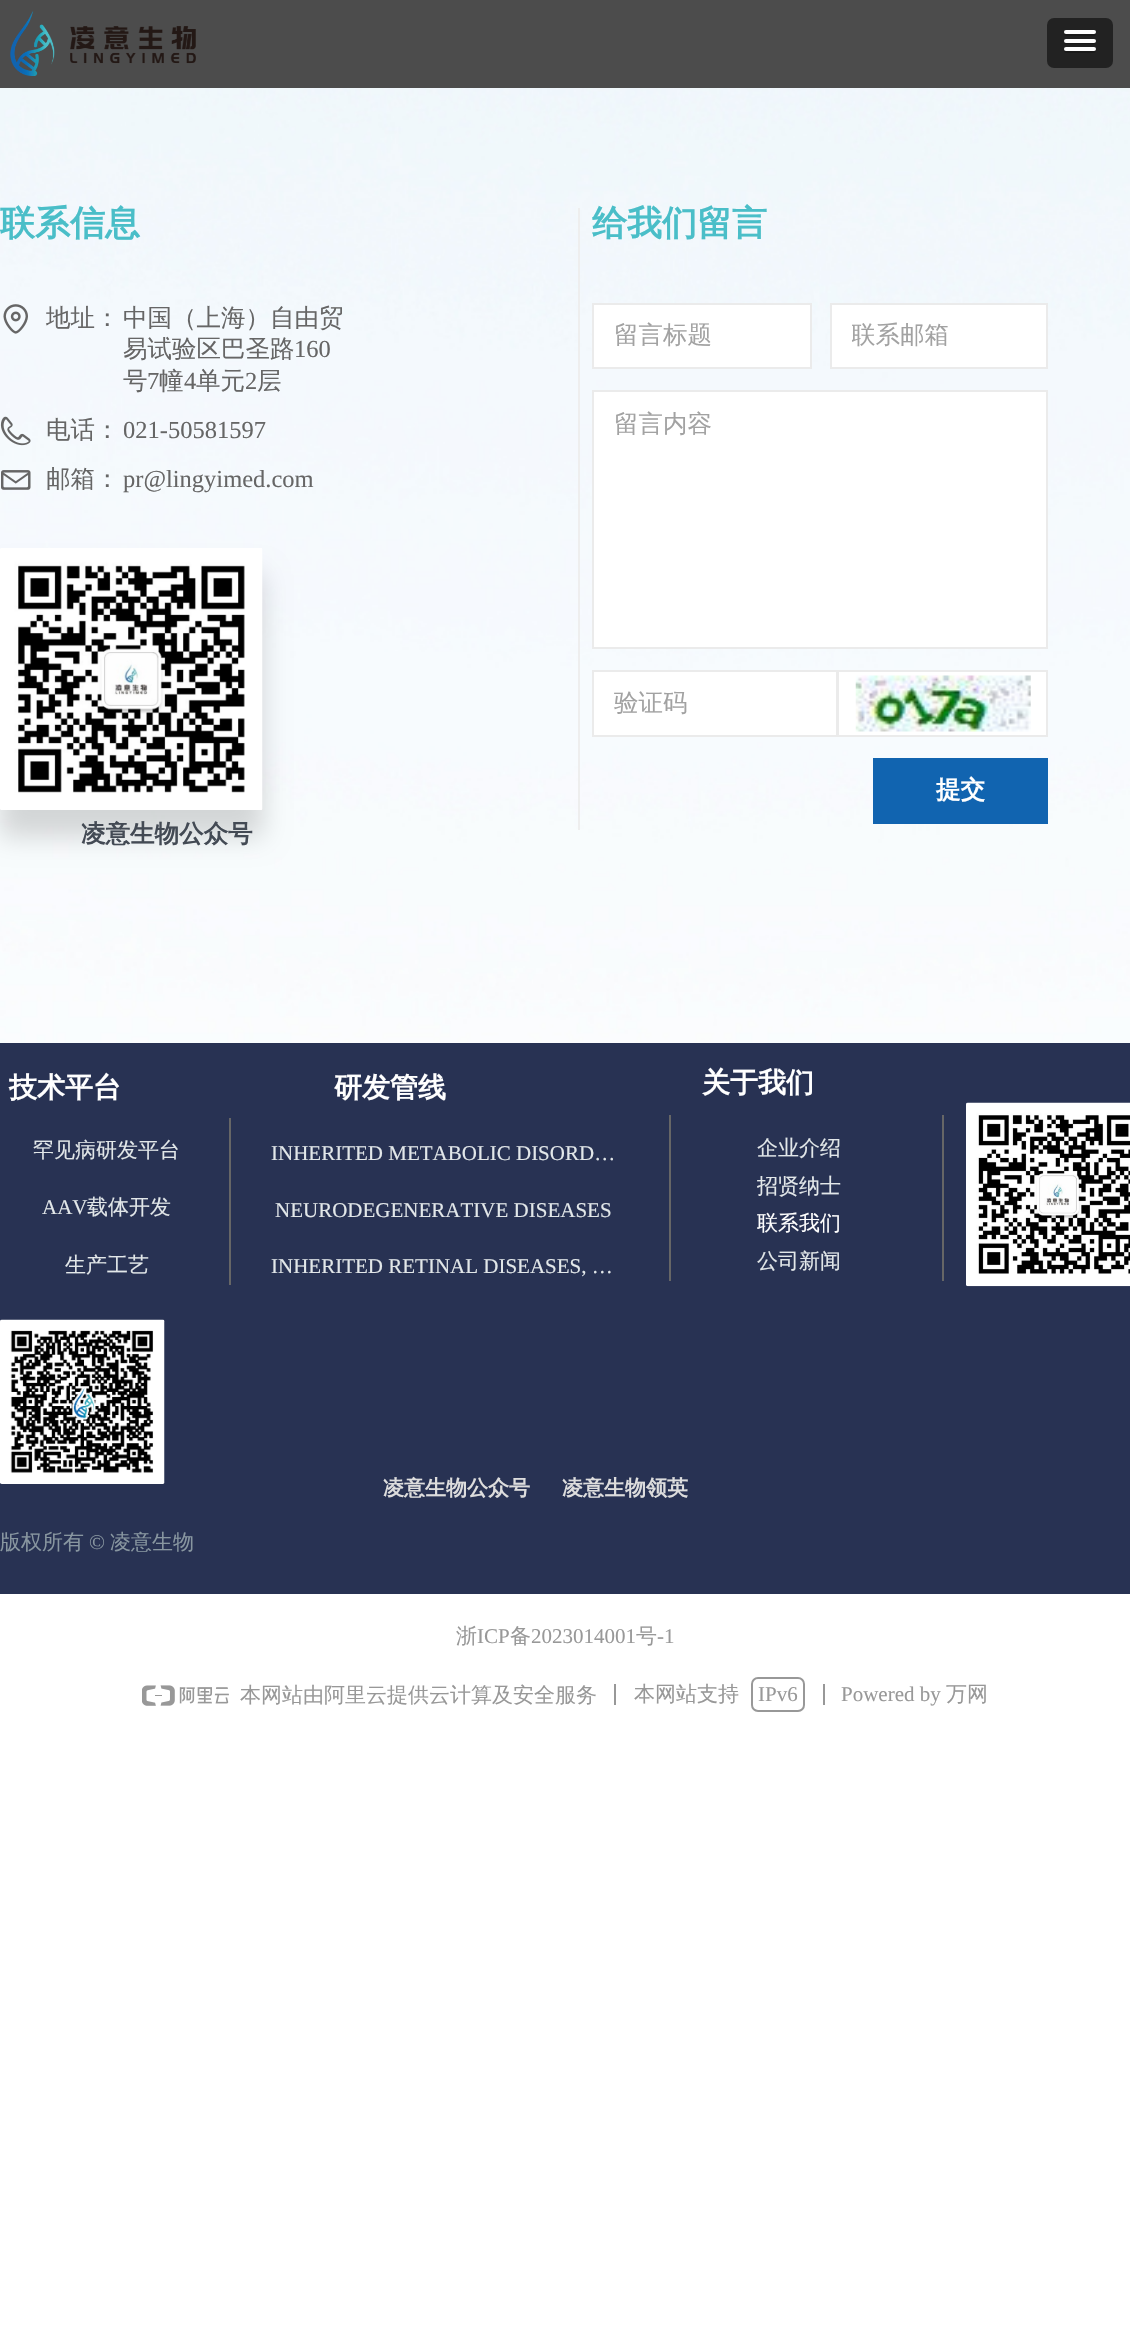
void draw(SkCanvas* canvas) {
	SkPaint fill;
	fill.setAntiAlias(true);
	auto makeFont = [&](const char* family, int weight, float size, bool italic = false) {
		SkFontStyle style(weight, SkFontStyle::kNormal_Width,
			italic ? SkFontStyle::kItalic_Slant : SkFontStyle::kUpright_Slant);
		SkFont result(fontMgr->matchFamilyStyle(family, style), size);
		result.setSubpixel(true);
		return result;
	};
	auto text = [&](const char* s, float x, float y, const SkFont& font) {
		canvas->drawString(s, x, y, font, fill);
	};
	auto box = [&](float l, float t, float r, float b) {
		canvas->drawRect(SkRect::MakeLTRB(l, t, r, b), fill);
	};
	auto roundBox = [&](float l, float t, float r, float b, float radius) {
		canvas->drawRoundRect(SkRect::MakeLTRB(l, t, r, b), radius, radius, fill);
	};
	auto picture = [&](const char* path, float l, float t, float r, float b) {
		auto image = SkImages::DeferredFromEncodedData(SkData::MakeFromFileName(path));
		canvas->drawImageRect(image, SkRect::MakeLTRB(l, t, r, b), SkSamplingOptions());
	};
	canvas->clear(0xFFFFFFFF);
	fill.setColor(0xFF4C4C4C);
	box(0, 0, 1130, 88);
	picture("image0.png", 10, 11, 196, 76);
	fill.setColor(0xFF222222);
	roundBox(1047, 18, 1113, 68, 7);
	fill.setColor(0xFF1A1A1A);
	canvas->drawPath(SkPathBuilder().moveTo(1064.5f, 32.5f).cubicTo(1064, 33, 1064, 34, 1064, 34.5f).cubicTo(1064.5f, 37, 1069.5f, 36, 1070.5f, 36).lineTo(1094, 36).cubicTo(1096, 36, 1096.5f, 33.5f, 1095, 32.5f).lineTo(1094, 33).lineTo(1065.5f, 33).close().detach(), fill);
	fill.setColor(0xFFFFFFFF);
	roundBox(1064, 30, 1096, 34, 2);
	fill.setColor(0xFF1A1A1A);
	canvas->drawPath(SkPathBuilder().moveTo(1064, 41).cubicTo(1062.5f, 45, 1070, 44, 1070.5f, 44).lineTo(1089.5f, 44).cubicTo(1090.5f, 44, 1095.5f, 45, 1096, 42.5f).cubicTo(1096, 42, 1096, 41, 1095.5f, 40.5f).cubicTo(1095.5f, 41.5f, 1094.5f, 42, 1094, 42).lineTo(1066, 42).cubicTo(1065, 42, 1064.5f, 41.5f, 1064, 41).close().detach(), fill);
	fill.setColor(0xFFFFFFFF);
	roundBox(1064, 39, 1096, 43, 2);
	fill.setColor(0xFF1A1A1A);
	canvas->drawPath(SkPathBuilder().moveTo(1064.5f, 50).cubicTo(1062, 54, 1070, 53, 1070.5f, 53).lineTo(1080, 53).cubicTo(1082.5f, 53, 1094, 53.5f, 1095.5f, 52.5f).cubicTo(1096, 51.5f, 1096, 50.5f, 1095.5f, 49.5f).lineTo(1094.5f, 50.5f).lineTo(1065.5f, 50.5f).close().detach(), fill);
	fill.setColor(0xFFFFFFFF);
	roundBox(1064, 47, 1096, 51, 2);
	picture("image1.png", 0, 88, 1130, 1043);
	fill.setColor(0xFFEEEEEE);
	box(578, 208, 580, 830);
	picture("image2.png", 3, 304, 28, 334);
	picture("image3.png", 0, 416, 31, 446);
	picture("image4.png", 1, 470, 31, 490);
	fill.setColor(0xFFFFFFFF);
	canvas->drawRect(SkRect::MakeLTRB(593, 304, 811, 368), fill);
	fill.setStyle(SkPaint::kStroke_Style);
	fill.setStrokeWidth(2);
	fill.setColor(0xFFEBEBEB);
	canvas->drawRect(SkRect::MakeLTRB(593, 304, 811, 368), fill);
	fill.setStyle(SkPaint::kFill_Style);
	fill.setColor(0xFFFFFFFF);
	canvas->drawRect(SkRect::MakeLTRB(831, 304, 1047, 368), fill);
	fill.setStyle(SkPaint::kStroke_Style);
	fill.setColor(0xFFEBEBEB);
	canvas->drawRect(SkRect::MakeLTRB(831, 304, 1047, 368), fill);
	fill.setStyle(SkPaint::kFill_Style);
	fill.setColor(0xFFFFFFFF);
	canvas->drawRect(SkRect::MakeLTRB(593, 391, 1047, 648), fill);
	fill.setStyle(SkPaint::kStroke_Style);
	fill.setColor(0xFFEBEBEB);
	canvas->drawRect(SkRect::MakeLTRB(593, 391, 1047, 648), fill);
	fill.setStyle(SkPaint::kFill_Style);
	fill.setColor(0xFFFFFFFF);
	canvas->drawRect(SkRect::MakeLTRB(593, 671, 837, 736), fill);
	fill.setStyle(SkPaint::kStroke_Style);
	fill.setColor(0xFFEBEBEB);
	canvas->drawRect(SkRect::MakeLTRB(593, 671, 837, 736), fill);
	fill.setStyle(SkPaint::kFill_Style);
	fill.setColor(0xFFFFFFFF);
	canvas->drawRect(SkRect::MakeLTRB(838, 671, 1047, 736), fill);
	fill.setStyle(SkPaint::kStroke_Style);
	fill.setColor(0xFFEBEBEB);
	canvas->drawRect(SkRect::MakeLTRB(838, 671, 1047, 736), fill);
	picture("image5.png", 855, 675, 1031, 732);
	fill.setStyle(SkPaint::kFill_Style);
	fill.setColor(0xFF1164B0);
	box(873, 758, 1048, 824);
	fill.setColor(0x26000000);
	fill.setMaskFilter(SkMaskFilter::MakeBlur(kNormal_SkBlurStyle, 13));
	canvas->drawRoundRect(SkRect::MakeLTRB(0, 574, 263, 837), 2, 2, fill);
	fill.setMaskFilter(nullptr);
	picture("image6.png", 0, 548, 263, 810);
	fill.setColor(0xFF283253);
	box(0, 1043, 1130, 1594);
	fill.setColor(0xFF666666);
	box(229, 1118, 231, 1285);
	box(669, 1115, 671, 1281);
	box(942, 1115, 944, 1281);
	picture("image7.png", 966, 1102, 1130, 1287);
	picture("image8.png", 0, 1319, 165, 1484);
	picture("image9.png", 142, 1685, 229, 1706);
	fill.setColor(0xFF989898);
	box(614, 1684, 616, 1705);
	fill.setStyle(SkPaint::kStroke_Style);
	canvas->drawRoundRect(SkRect::MakeLTRB(752, 1678, 804, 1711), 6, 6, fill);
	fill.setStyle(SkPaint::kFill_Style);
	box(823, 1684, 825, 1705);
	auto font1 = makeFont("WenQuanYi Zen Hei", 700, 35);
	fill.setColor(0xFF4ABEC8);
	text("联系信息", 0, 235, font1);
	text("给我们留言", 592, 235, font1);
	auto font2 = makeFont("WenQuanYi Zen Hei", 500, 24.5f);
	fill.setColor(0xFF666666);
	text("地址：", 46, 326, font2);
	text("中国（上海）自由贸", 123, 326, font2);
	text("易试验区巴圣路", 123, 357, font2);
	auto font3 = makeFont("Liberation Serif", 400, 24.5f);
	text("160", 294, 357, font3);
	text("号", 123, 389, font2);
	text("7", 147, 389, font3);
	text("幢", 159, 389, font2);
	text("4", 184, 389, font3);
	text("单元", 196, 389, font2);
	text("2", 245, 389, font3);
	text("层", 257, 389, font2);
	text("电话：", 46, 438, font2);
	text("021-50581597", 123, 438, font3);
	text("邮箱：", 46, 487, font2);
	text("pr@lingyimed.com", 123, 487, font3);
	fill.setColor(0xFFA2A2A2);
	text("留言标题", 614, 343, font2);
	canvas->save();
	canvas->clipRect(SkRect::MakeLTRB(852, 320, 1026, 352));
	text("联系邮箱", 851, 343, font2);
	canvas->restore();
	text("留言内容", 614, 432, font2);
	text("验证码", 614, 711, font2);
	auto font4 = makeFont("WenQuanYi Zen Hei", 700, 24.5f);
	fill.setColor(0xFFFFFFFF);
	text("提交", 936, 798, font4);
	fill.setColor(0xFF434A54);
	text("凌意生物公众号", 81, 842, font4);
	auto font5 = makeFont("WenQuanYi Zen Hei", 700, 28);
	fill.setColor(0xFFFFFFFF);
	text("技术平台", 9, 1097, font5);
	text("研发管线", 334, 1097, font5);
	text("关于我们", 702, 1092, font5);
	auto font6 = makeFont("WenQuanYi Zen Hei", 500, 21);
	fill.setColor(0xFFE2E7E9);
	text("罕见病研发平台", 33, 1157, font6);
	auto font7 = makeFont("Liberation Serif", 400, 21);
	text("AAV", 42, 1214, font7);
	text("载体开发", 87, 1214, font6);
	text("生产工艺", 65, 1272, font6);
	text("INHERITED METABOLIC DISORD…", 271, 1160, font7);
	text("NEURODEGENERATIVE DISEASES", 275, 1217, font7);
	text("INHERITED RETINAL DISEASES, …", 271, 1273, font7);
	text("企业介绍", 757, 1155, font6);
	text("招贤纳士", 757, 1193, font6);
	fill.setColor(0xFFFFFFFF);
	text("联系我们", 757, 1230, font6);
	fill.setColor(0xFFE2E7E9);
	text("公司新闻", 757, 1268, font6);
	auto font8 = makeFont("WenQuanYi Zen Hei", 700, 21);
	fill.setColor(0xFFDDDDDD);
	text("凌意生物公众号", 383, 1495, font8);
	text("凌意生物领英", 562, 1495, font8);
	fill.setColor(0xFF8896A0);
	text("版权所有", 0, 1549, font6);
	text("©", 89, 1549, font7);
	text("凌意生物", 110, 1549, font6);
	fill.setColor(0xFF989898);
	text("浙", 456, 1643, font6);
	text("ICP", 477, 1643, font7);
	text("备", 510, 1643, font6);
	text("2023014001", 531, 1643, font7);
	text("号", 636, 1643, font6);
	text("-1", 657, 1643, font7);
	text("本网站由阿里云提供云计算及安全服务", 240, 1702, font6);
	text("本网站支持", 634, 1701, font6);
	text("IPv6", 758, 1701, font7);
	text("Powered by", 841, 1701, font7);
	text("万网", 946, 1701, font6);
}
